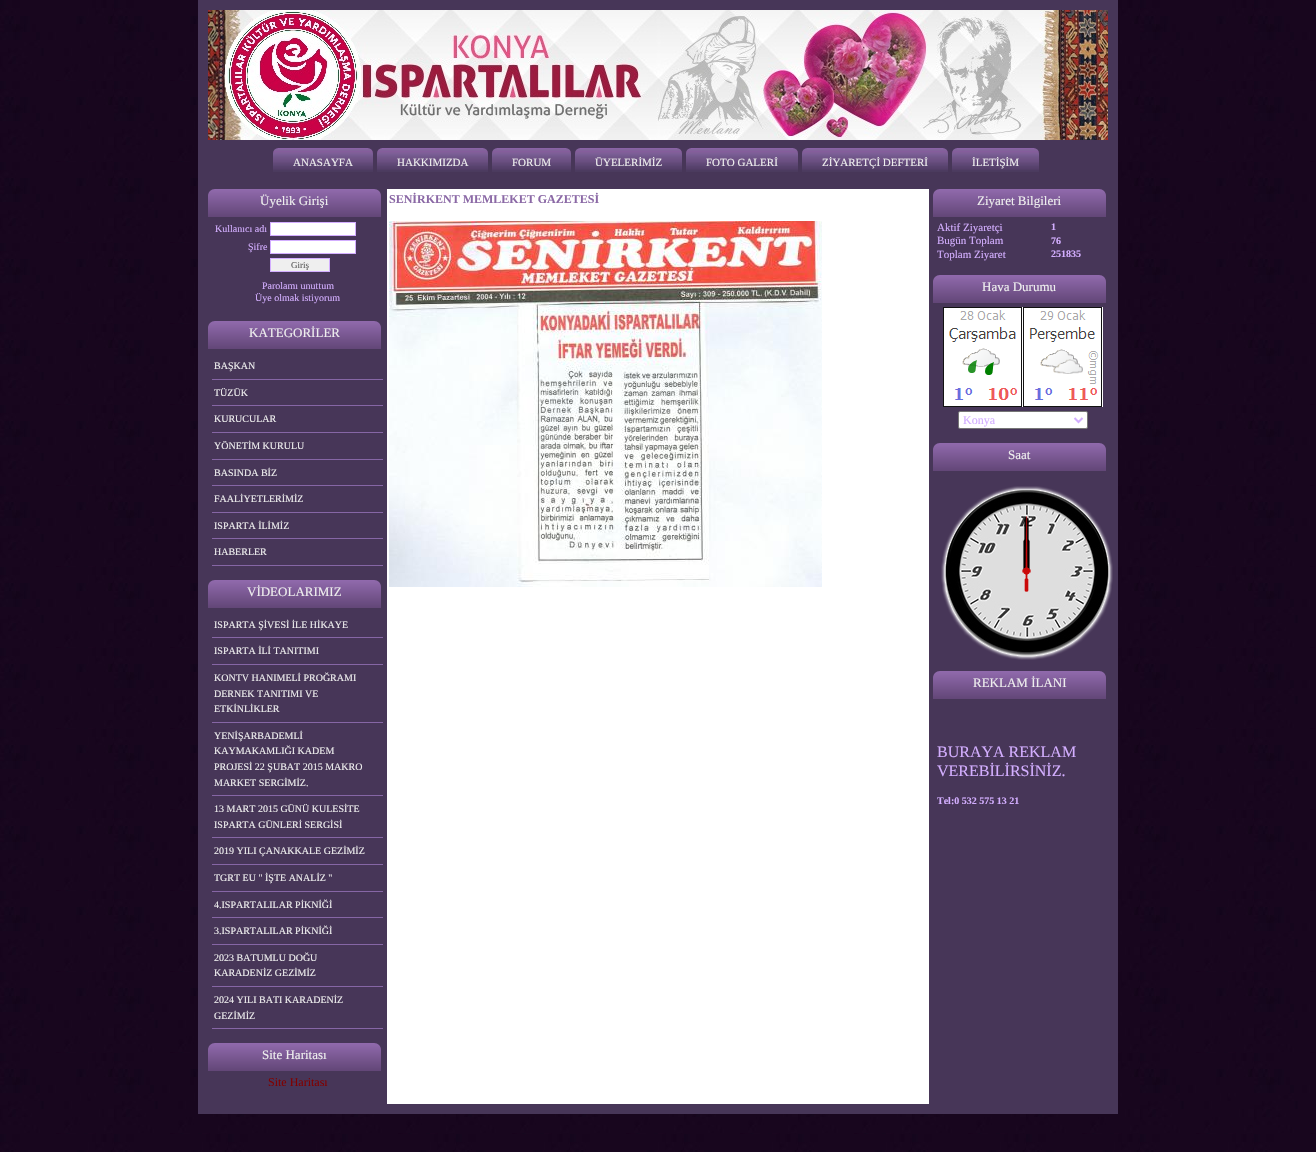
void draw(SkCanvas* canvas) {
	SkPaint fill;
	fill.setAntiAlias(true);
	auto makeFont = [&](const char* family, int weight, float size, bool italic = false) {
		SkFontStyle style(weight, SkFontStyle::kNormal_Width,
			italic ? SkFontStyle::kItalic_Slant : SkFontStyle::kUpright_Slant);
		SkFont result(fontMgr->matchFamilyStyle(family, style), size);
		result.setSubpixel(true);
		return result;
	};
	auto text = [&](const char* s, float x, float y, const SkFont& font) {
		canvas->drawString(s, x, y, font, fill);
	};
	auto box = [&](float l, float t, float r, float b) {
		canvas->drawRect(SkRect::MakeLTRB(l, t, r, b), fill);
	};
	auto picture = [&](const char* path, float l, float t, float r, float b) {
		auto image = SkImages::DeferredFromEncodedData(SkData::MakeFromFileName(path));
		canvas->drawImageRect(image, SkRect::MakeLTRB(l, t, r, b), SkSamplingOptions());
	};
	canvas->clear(0xFFFFFFFF);
	picture("image0.png", 0, 0, 1316, 1152);
	fill.setColor(0xFF473658);
	box(198, 0, 1118, 1114);
	picture("image1.png", 208, 10, 1108, 140);
	picture("image2.png", 273, 148, 373, 172);
	picture("image3.png", 377, 148, 488, 172);
	picture("image4.png", 492, 148, 571, 172);
	picture("image5.png", 575, 148, 682, 172);
	picture("image6.png", 686, 148, 798, 172);
	picture("image7.png", 802, 148, 948, 172);
	picture("image8.png", 952, 148, 1039, 172);
	{
		const SkColor colors[] = {0xFF916AAD, 0xFF624677};
		const float stops[] = {0, 1};
		const SkPoint ends[] = {{295, 189}, {295, 217}};
		fill.setShader(SkGradientShader::MakeLinear(ends, colors, stops, 2, SkTileMode::kClamp));
		fill.setAlpha(255);
	}
	canvas->drawPath(SkPathBuilder().moveTo(215, 189).lineTo(374, 189).cubicTo(378, 189, 381, 192, 381, 196).lineTo(381, 217).lineTo(208, 217).lineTo(208, 196).cubicTo(208, 192, 211, 189, 215, 189).close().detach(), fill);
	fill.setShader(nullptr);
	fill.setColor(0xFFFFFFFF);
	canvas->drawRect(SkRect::MakeLTRB(270.5f, 222.5f, 355.5f, 235.5f), fill);
	fill.setStyle(SkPaint::kStroke_Style);
	fill.setStrokeWidth(1);
	fill.setColor(0xFFD3AEFF);
	canvas->drawRect(SkRect::MakeLTRB(270.5f, 222.5f, 355.5f, 235.5f), fill);
	fill.setStyle(SkPaint::kFill_Style);
	fill.setColor(0xFFFFFFFF);
	canvas->drawRect(SkRect::MakeLTRB(270.5f, 240.5f, 355.5f, 253.5f), fill);
	fill.setStyle(SkPaint::kStroke_Style);
	fill.setColor(0xFFD3AEFF);
	canvas->drawRect(SkRect::MakeLTRB(270.5f, 240.5f, 355.5f, 253.5f), fill);
	fill.setStyle(SkPaint::kFill_Style);
	fill.setColor(0xFFEFEFEF);
	canvas->drawRect(SkRect::MakeLTRB(270.5f, 258.5f, 329.5f, 271.5f), fill);
	fill.setStyle(SkPaint::kStroke_Style);
	fill.setColor(0xFFD3AEFF);
	canvas->drawRect(SkRect::MakeLTRB(270.5f, 258.5f, 329.5f, 271.5f), fill);
	fill.setStyle(SkPaint::kFill_Style);
	{
		const SkColor colors[] = {0xFF916AAD, 0xFF624677};
		const float stops[] = {0, 1};
		const SkPoint ends[] = {{295, 321}, {295, 349}};
		fill.setShader(SkGradientShader::MakeLinear(ends, colors, stops, 2, SkTileMode::kClamp));
		fill.setAlpha(255);
	}
	canvas->drawPath(SkPathBuilder().moveTo(215, 321).lineTo(374, 321).cubicTo(378, 321, 381, 324, 381, 328).lineTo(381, 349).lineTo(208, 349).lineTo(208, 328).cubicTo(208, 324, 211, 321, 215, 321).close().detach(), fill);
	fill.setShader(nullptr);
	fill.setColor(0xFF8666A5);
	box(212, 379, 383, 380);
	box(212, 405, 383, 406);
	box(212, 432, 383, 433);
	box(212, 459, 383, 460);
	box(212, 485, 383, 486);
	box(212, 512, 383, 513);
	box(212, 538, 383, 539);
	box(212, 565, 383, 566);
	{
		const SkColor colors[] = {0xFF916AAD, 0xFF624677};
		const float stops[] = {0, 1};
		const SkPoint ends[] = {{295, 580}, {295, 608}};
		fill.setShader(SkGradientShader::MakeLinear(ends, colors, stops, 2, SkTileMode::kClamp));
		fill.setAlpha(255);
	}
	canvas->drawPath(SkPathBuilder().moveTo(215, 580).lineTo(374, 580).cubicTo(378, 580, 381, 583, 381, 587).lineTo(381, 608).lineTo(208, 608).lineTo(208, 587).cubicTo(208, 583, 211, 580, 215, 580).close().detach(), fill);
	fill.setShader(nullptr);
	fill.setColor(0xFF8666A5);
	box(212, 637, 383, 638);
	box(212, 664, 383, 665);
	box(212, 722, 383, 723);
	box(212, 795, 383, 796);
	box(212, 837, 383, 838);
	box(212, 864, 383, 865);
	box(212, 891, 383, 892);
	box(212, 917, 383, 918);
	box(212, 944, 383, 945);
	box(212, 986, 383, 987);
	box(212, 1028, 383, 1029);
	{
		const SkColor colors[] = {0xFF916AAD, 0xFF624677};
		const float stops[] = {0, 1};
		const SkPoint ends[] = {{295, 1043}, {295, 1071}};
		fill.setShader(SkGradientShader::MakeLinear(ends, colors, stops, 2, SkTileMode::kClamp));
		fill.setAlpha(255);
	}
	canvas->drawPath(SkPathBuilder().moveTo(215, 1043).lineTo(374, 1043).cubicTo(378, 1043, 381, 1046, 381, 1050).lineTo(381, 1071).lineTo(208, 1071).lineTo(208, 1050).cubicTo(208, 1046, 211, 1043, 215, 1043).close().detach(), fill);
	fill.setShader(nullptr);
	fill.setColor(0xFFFFFFFF);
	box(387, 189, 929, 1104);
	picture("image9.png", 389, 221, 822, 587);
	{
		const SkColor colors[] = {0xFF916AAD, 0xFF624677};
		const float stops[] = {0, 1};
		const SkPoint ends[] = {{1020, 189}, {1020, 217}};
		fill.setShader(SkGradientShader::MakeLinear(ends, colors, stops, 2, SkTileMode::kClamp));
		fill.setAlpha(255);
	}
	canvas->drawPath(SkPathBuilder().moveTo(940, 189).lineTo(1099, 189).cubicTo(1103, 189, 1106, 192, 1106, 196).lineTo(1106, 217).lineTo(933, 217).lineTo(933, 196).cubicTo(933, 192, 936, 189, 940, 189).close().detach(), fill);
	{
		const SkColor colors[] = {0xFF916AAD, 0xFF624677};
		const float stops[] = {0, 1};
		const SkPoint ends[] = {{1020, 275}, {1020, 303}};
		fill.setShader(SkGradientShader::MakeLinear(ends, colors, stops, 2, SkTileMode::kClamp));
		fill.setAlpha(255);
	}
	canvas->drawPath(SkPathBuilder().moveTo(940, 275).lineTo(1099, 275).cubicTo(1103, 275, 1106, 278, 1106, 282).lineTo(1106, 303).lineTo(933, 303).lineTo(933, 282).cubicTo(933, 278, 936, 275, 940, 275).close().detach(), fill);
	picture("image10.png", 943, 307, 1103, 407);
	fill.setShader(nullptr);
	fill.setColor(0xFFFFFFFF);
	canvas->drawRoundRect(SkRect::MakeLTRB(958.5f, 411.5f, 1087.5f, 428.5f), 1.5f, 1.5f, fill);
	fill.setStyle(SkPaint::kStroke_Style);
	fill.setColor(0xFF767676);
	canvas->drawRoundRect(SkRect::MakeLTRB(958.5f, 411.5f, 1087.5f, 428.5f), 1.5f, 1.5f, fill);
	fill.setStrokeWidth(2);
	fill.setColor(0xFFD3AEFF);
	canvas->drawPath(SkPathBuilder().moveTo(1074.5f, 418).lineTo(1078.5f, 422).lineTo(1082.5f, 418).detach(), fill);
	fill.setStyle(SkPaint::kFill_Style);
	{
		const SkColor colors[] = {0xFF916AAD, 0xFF624677};
		const float stops[] = {0, 1};
		const SkPoint ends[] = {{1020, 443}, {1020, 471}};
		fill.setShader(SkGradientShader::MakeLinear(ends, colors, stops, 2, SkTileMode::kClamp));
		fill.setAlpha(255);
	}
	canvas->drawPath(SkPathBuilder().moveTo(940, 443).lineTo(1099, 443).cubicTo(1103, 443, 1106, 446, 1106, 450).lineTo(1106, 471).lineTo(933, 471).lineTo(933, 450).cubicTo(933, 446, 936, 443, 940, 443).close().detach(), fill);
	picture("image11.png", 941, 486, 1113, 660);
	picture("image14.png", 1023, 539, 1030, 571);
	picture("image13.png", 1024, 517, 1029, 541);
	picture("image12.png", 1022, 516, 1031, 592);
	{
		const SkColor colors[] = {0xFF916AAD, 0xFF624677};
		const float stops[] = {0, 1};
		const SkPoint ends[] = {{1020, 671}, {1020, 699}};
		fill.setShader(SkGradientShader::MakeLinear(ends, colors, stops, 2, SkTileMode::kClamp));
		fill.setAlpha(255);
	}
	canvas->drawPath(SkPathBuilder().moveTo(940, 671).lineTo(1099, 671).cubicTo(1103, 671, 1106, 674, 1106, 678).lineTo(1106, 699).lineTo(933, 699).lineTo(933, 678).cubicTo(933, 674, 936, 671, 940, 671).close().detach(), fill);
	auto font1 = makeFont("Liberation Serif", 400, 11);
	fill.setShader(nullptr);
	fill.setColor(0xFFEEEEEE);
	text("ANASAYFA", 293, 166, font1);
	text("HAKKIMIZDA", 397, 166, font1);
	text("FORUM", 512, 166, font1);
	text("ÜYELERİMİZ", 595, 166, font1);
	text("FOTO GALERİ", 706, 166, font1);
	text("ZİYARETÇİ DEFTERİ", 822, 166, font1);
	text("İLETİŞİM", 972, 166, font1);
	auto font2 = makeFont("Liberation Serif", 400, 13);
	text("Üyelik Girişi", 260, 205, font2);
	auto font3 = makeFont("Liberation Serif", 400, 10);
	fill.setColor(0xFFD3AEFF);
	text("Kullanıcı adı", 215, 232, font3);
	text("Şifre", 248, 250, font3);
	auto font4 = makeFont("Liberation Serif", 400, 9);
	fill.setColor(0xFF585858);
	text("Giriş", 291, 268, font4);
	fill.setColor(0xFFD3AEFF);
	text("Parolamı unuttum", 262, 289, font3);
	text("Üye olmak istiyorum", 255, 301, font3);
	fill.setColor(0xFFEEEEEE);
	text("KATEGORİLER", 249, 337, font2);
	text("BAŞKAN", 214, 369, font3);
	text("TÜZÜK", 214, 396, font3);
	text("KURUCULAR", 214, 422, font3);
	text("YÖNETİM KURULU", 214, 449, font3);
	text("BASINDA BİZ", 214, 476, font3);
	text("FAALİYETLERİMİZ", 214, 502, font3);
	text("ISPARTA İLİMİZ", 214, 529, font3);
	text("HABERLER", 214, 555, font3);
	text("VİDEOLARIMIZ", 247, 596, font2);
	text("ISPARTA ŞİVESİ İLE HİKAYE", 214, 628, font3);
	text("ISPARTA İLİ TANITIMI", 214, 654, font3);
	text("KONTV HANIMELİ PROĞRAMI", 214, 681, font3);
	text("DERNEK TANITIMI VE", 214, 697, font3);
	text("ETKİNLİKLER", 214, 712, font3);
	text("YENİŞARBADEMLİ", 214, 739, font3);
	text("KAYMAKAMLIĞI KADEM", 214, 754, font3);
	text("PROJESİ 22 ŞUBAT 2015 MAKRO", 214, 770, font3);
	text("MARKET SERGİMİZ.", 214, 786, font3);
	text("13 MART 2015 GÜNÜ KULESİTE", 214, 812, font3);
	text("ISPARTA GÜNLERİ SERGİSİ", 214, 828, font3);
	text("2019 YILI ÇANAKKALE GEZİMİZ", 214, 854, font3);
	text("TGRT EU \" İŞTE ANALİZ \"", 214, 881, font3);
	text("4.ISPARTALILAR PİKNİĞİ", 214, 908, font3);
	text("3.ISPARTALILAR PİKNİĞİ", 214, 934, font3);
	text("2023 BATUMLU DOĞU", 214, 961, font3);
	text("KARADENİZ GEZİMİZ", 214, 976, font3);
	text("2024 YILI BATI KARADENİZ", 214, 1003, font3);
	text("GEZİMİZ", 214, 1019, font3);
	text("Site Haritası", 262, 1059, font2);
	auto font5 = makeFont("Liberation Serif", 400, 12);
	fill.setColor(0xFF800000);
	text("Site Haritası", 268, 1086, font5);
	auto font6 = makeFont("Liberation Serif", 700, 12);
	fill.setColor(0xFF8B69A6);
	text("SENİRKENT MEMLEKET GAZETESİ", 389, 203, font6);
	fill.setColor(0xFFEEEEEE);
	text("Ziyaret Bilgileri", 977, 205, font2);
	fill.setColor(0xFFD3AEFF);
	text("Aktif Ziyaretçi", 937, 231, font1);
	auto font7 = makeFont("Liberation Serif", 700, 10);
	text("1", 1051, 230, font7);
	text("Bugün Toplam", 937, 244, font1);
	text("76", 1051, 244, font7);
	text("Toplam Ziyaret", 937, 258, font1);
	text("251835", 1051, 257, font7);
	fill.setColor(0xFFEEEEEE);
	text("Hava Durumu", 982, 291, font2);
	fill.setColor(0xFFD3AEFF);
	text("Konya", 963, 424, font5);
	fill.setColor(0xFFEEEEEE);
	text("Saat", 1008, 459, font2);
	text("REKLAM İLANI", 973, 687, font2);
	auto font8 = makeFont("Liberation Serif", 400, 16);
	fill.setColor(0xFFD3AEFF);
	text("BURAYA REKLAM", 937, 757, font8);
	text("VEREBİLİRSİNİZ.", 937, 776, font8);
	text("Tel:0 532 575 13 21", 937, 804, font7);
}
